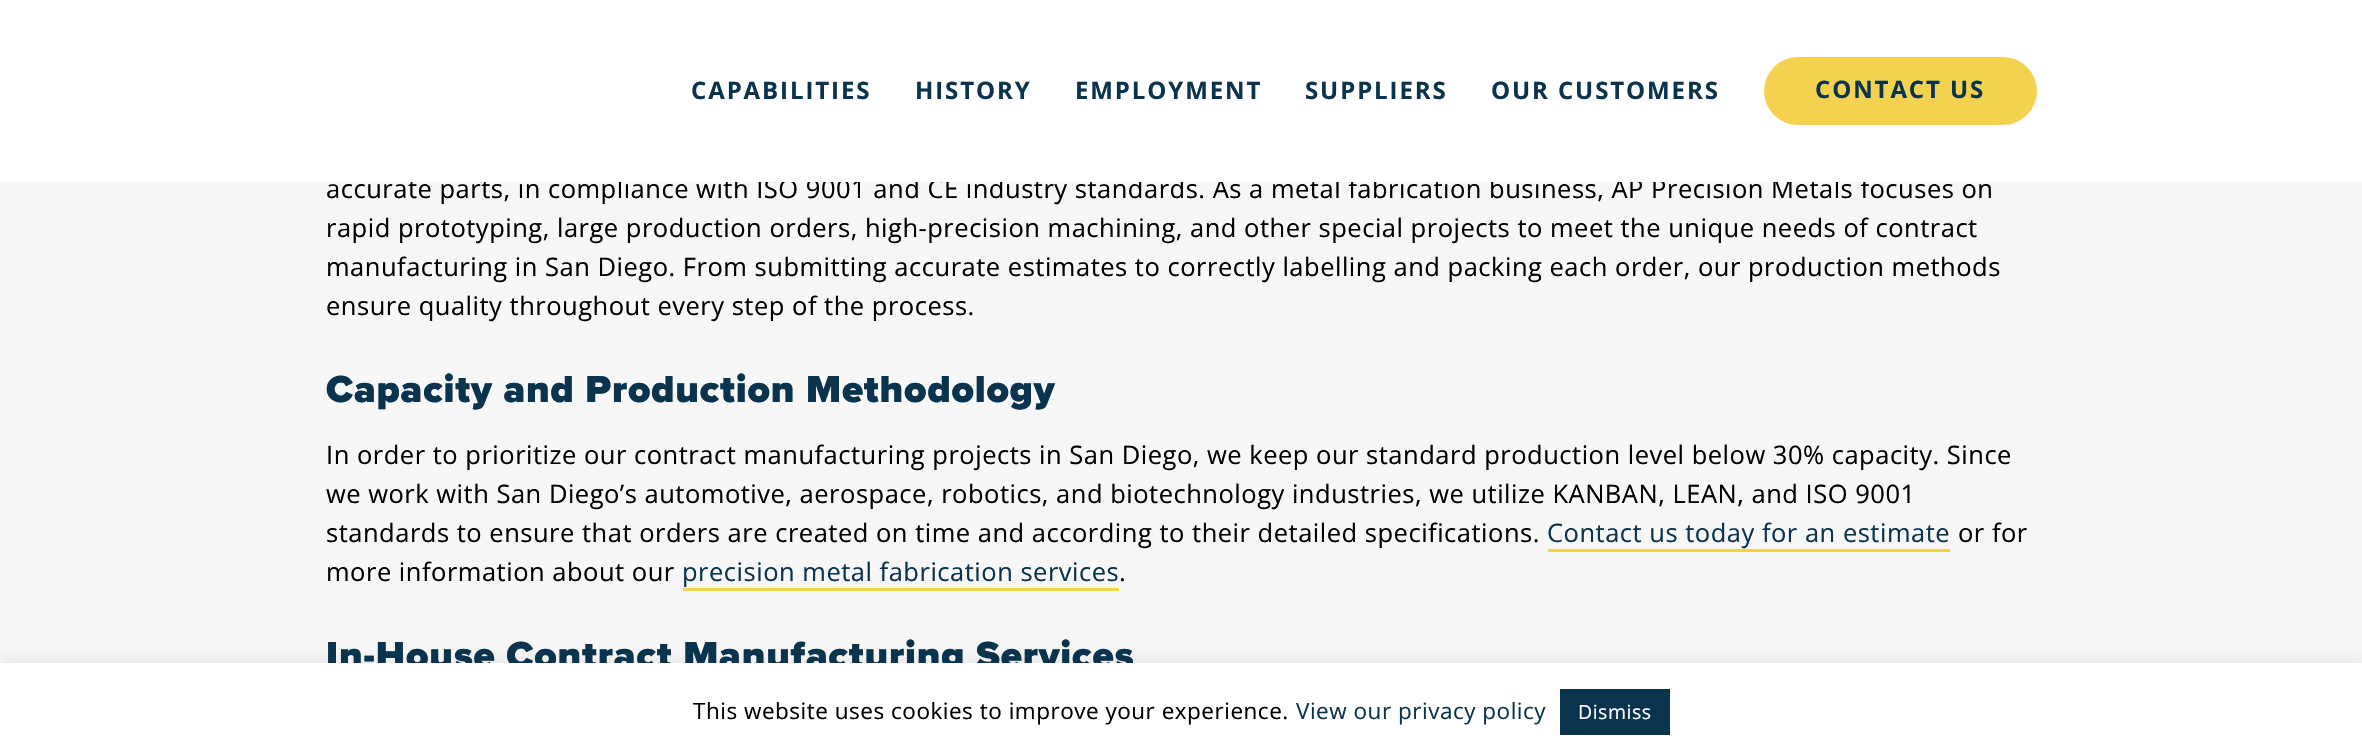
void draw(SkCanvas* canvas) {
	SkPaint fill;
	fill.setAntiAlias(true);
	auto makeFont = [&](const char* family, int weight, float size, bool italic = false) {
		SkFontStyle style(weight, SkFontStyle::kNormal_Width,
			italic ? SkFontStyle::kItalic_Slant : SkFontStyle::kUpright_Slant);
		SkFont result(fontMgr->matchFamilyStyle(family, style), size);
		result.setSubpixel(true);
		return result;
	};
	auto spacedText = [&](const char* s, float x, float y, const SkFont& font, const SkPaint& ink, float letter, float word) {
		std::vector<SkGlyphID> glyphs(font.countText(s, strlen(s), SkTextEncoding::kUTF8));
		std::vector<float> xs(glyphs.size());
		font.textToGlyphs(s, strlen(s), SkTextEncoding::kUTF8, glyphs);
		font.getXPos(glyphs, xs, x);
		float extra = 0;
		for (size_t i = 0; i < glyphs.size(); i++) {
			xs[i] += extra;
			extra += letter + word * (glyphs[i] == font.unicharToGlyph(' '));
		}
		canvas->drawTextBlob(SkTextBlob::MakeFromPosHGlyphs(glyphs, xs, y, font), 0, 0, ink);
	};
	auto box = [&](float l, float t, float r, float b) {
		canvas->drawRect(SkRect::MakeLTRB(l, t, r, b), fill);
	};
	auto roundBox = [&](float l, float t, float r, float b, float radius) {
		canvas->drawRoundRect(SkRect::MakeLTRB(l, t, r, b), radius, radius, fill);
	};
	canvas->clear(0xFFF7F7F7);
	fill.setColor(0xFFF4D14E);
	box(1548, 549, 1950, 552);
	box(683, 588, 1119, 591);
	fill.setColor(0x4DACABAB);
	fill.setMaskFilter(SkMaskFilter::MakeBlur(kNormal_SkBlurStyle, 7.5f));
	canvas->drawRect(SkRect::MakeLTRB(0, 662, 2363, 752), fill);
	fill.setMaskFilter(nullptr);
	auto font1 = makeFont("Open Sans", 400, 25.5f);
	fill.setColor(0xFF000000);
	spacedText("accurate parts, in compliance with ISO 9001 and CE industry standards. As a metal fabrication business, AP Precision Metals focuses on", 326, 198, font1, fill, 0.51f, 0);
	fill.setColor(0xFFFFFFFF);
	box(0, 0, 2362, 182);
	auto font2 = makeFont("Open Sans", 700, 24);
	fill.setColor(0xFF0A334D);
	spacedText("OUR CUSTOMERS", 1491, 99, font2, fill, 1.9f, 0);
	spacedText("SUPPLIERS", 1305, 99, font2, fill, 1.9f, 0);
	spacedText("EMPLOYMENT", 1075, 99, font2, fill, 1.9f, 0);
	spacedText("HISTORY", 915, 99, font2, fill, 1.9f, 0);
	spacedText("CAPABILITIES", 691, 99, font2, fill, 1.9f, 0);
	fill.setColor(0xFFF4D14E);
	roundBox(1764, 57, 2037, 125, 34);
	fill.setColor(0xFF0A334D);
	spacedText("CONTACT US", 1815, 98, font2, fill, 1.9f, 0);
	fill.setColor(0xFF000000);
	spacedText("rapid prototyping, large production orders, high-precision machining, and other special projects to meet the unique needs of contract", 326, 237, font1, fill, 0.51f, 0);
	spacedText("manufacturing in San Diego. From submitting accurate estimates to correctly labelling and packing each order, our production methods", 326, 276, font1, fill, 0.51f, 0);
	spacedText("ensure quality throughout every step of the process.", 326, 315, font1, fill, 0.51f, 0);
	auto font3 = makeFont("Proxima Nova", 900, 39);
	fill.setColor(0xFF0A334D);
	spacedText("Capacity and Production Methodology", 326, 402, font3, fill, 0.8f, 0);
	fill.setColor(0xFF000000);
	spacedText("In order to prioritize our contract manufacturing projects in San Diego, we keep our standard production level below 30% capacity. Since", 326, 464, font1, fill, 0.51f, 0);
	spacedText("we work with San Diego’s automotive, aerospace, robotics, and biotechnology industries, we utilize KANBAN, LEAN, and ISO 9001", 326, 503, font1, fill, 0.51f, 0);
	spacedText("standards to ensure that orders are created on time and according to their detailed specifications.", 326, 542, font1, fill, 0.51f, 0);
	fill.setColor(0xFF0A334D);
	spacedText("Contact us today for an estimate", 1547, 542, font1, fill, 0.51f, 0);
	fill.setColor(0xFF000000);
	spacedText("or for", 1958, 542, font1, fill, 0.51f, 0);
	spacedText("more information about our", 326, 581, font1, fill, 0.51f, 0);
	fill.setColor(0xFF0A334D);
	spacedText("precision metal fabrication services", 682, 581, font1, fill, 0.51f, 0);
	fill.setColor(0xFF000000);
	spacedText(".", 1119, 581, font1, fill, 0.51f, 0);
	fill.setColor(0xFF0A334D);
	spacedText("In-House Contract Manufacturing Services", 326, 668, font3, fill, 0.8f, 0);
	fill.setColor(0xFFFFFFFF);
	box(0, 663, 2362, 753);
	auto font4 = makeFont("Open Sans", 400, 22.5f);
	fill.setColor(0xFF000000);
	spacedText("This website uses cookies to improve your experience.", 693, 719, font4, fill, 0.51f, 0);
	fill.setColor(0xFF0A334D);
	spacedText("View our privacy policy", 1296, 719, font4, fill, 0.51f, 0);
	box(1560, 689, 1670, 735);
	auto font5 = makeFont("Open Sans", 400, 19.5f);
	fill.setColor(0xFFFFFFFF);
	spacedText("Dismiss", 1578, 719, font5, fill, 0.51f, 0);
}
